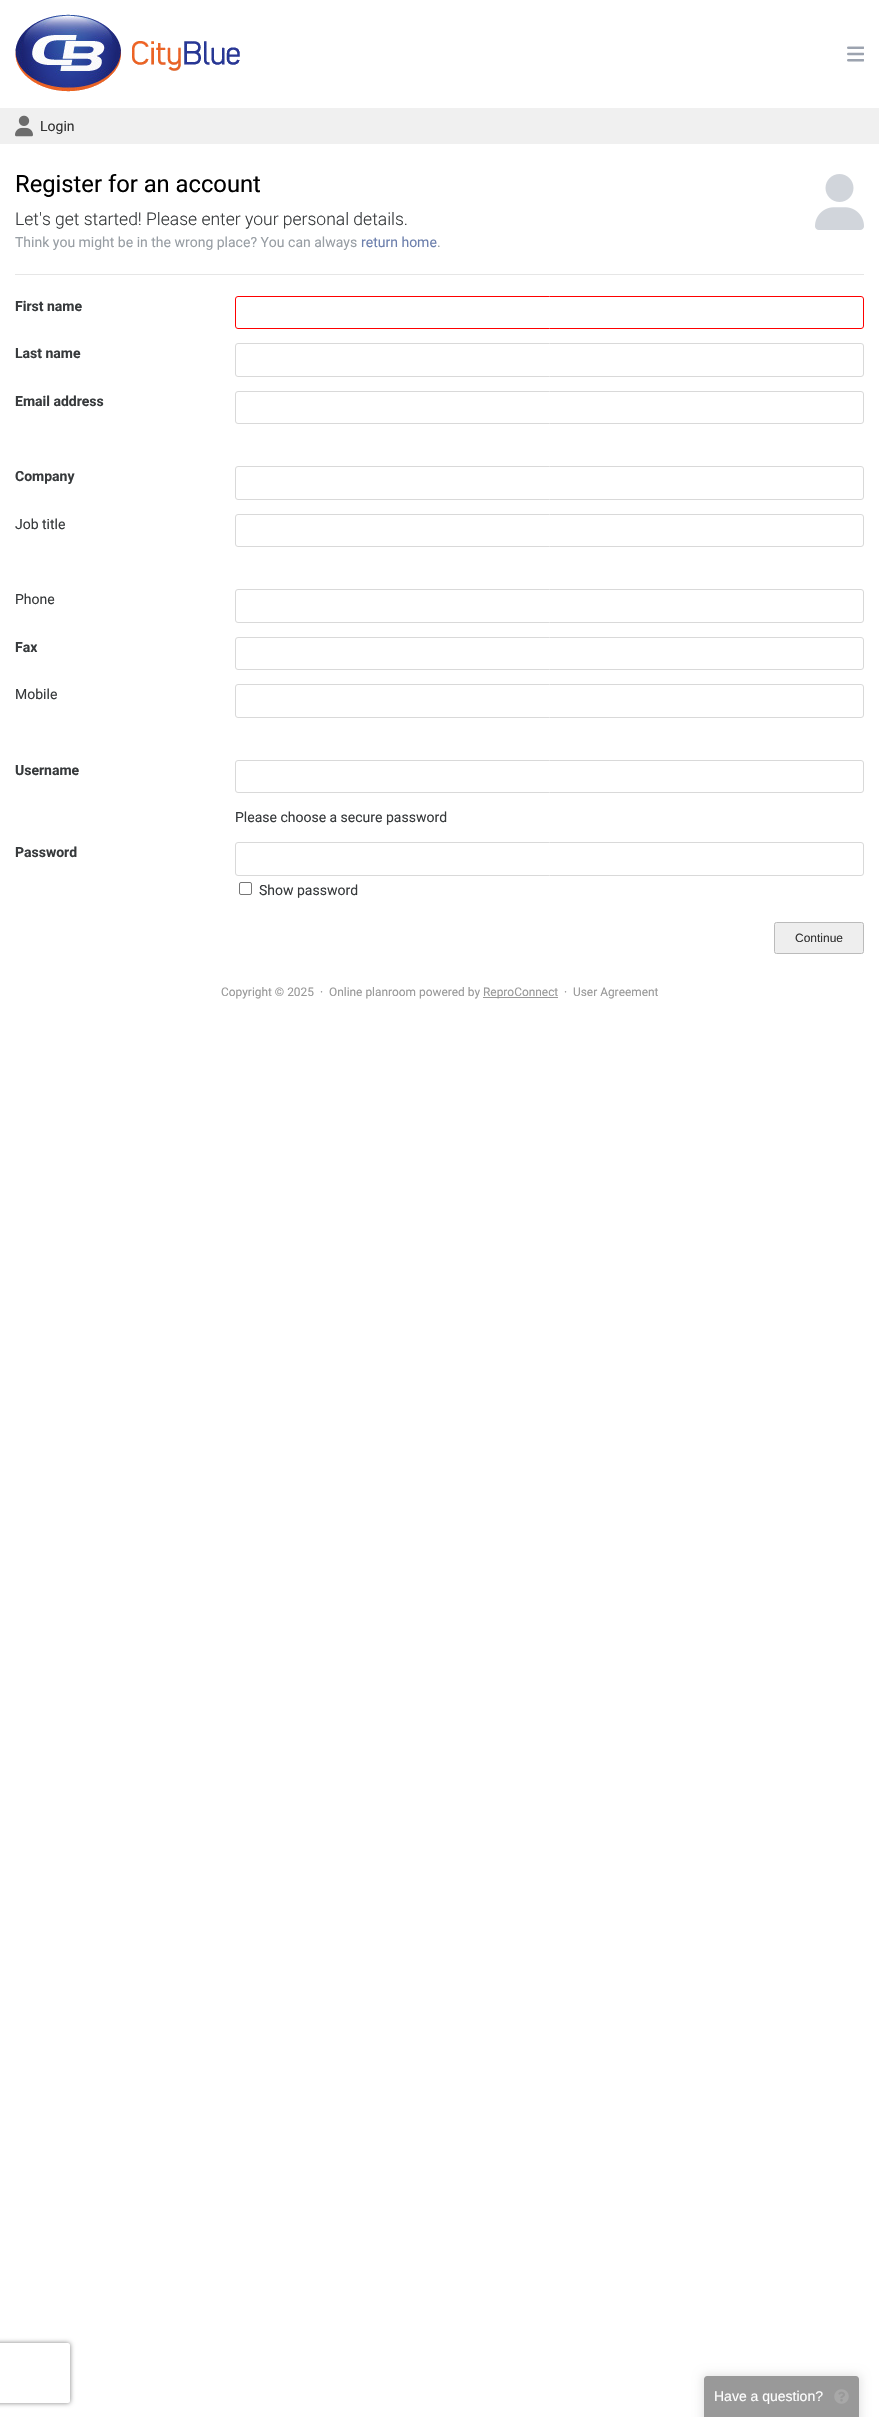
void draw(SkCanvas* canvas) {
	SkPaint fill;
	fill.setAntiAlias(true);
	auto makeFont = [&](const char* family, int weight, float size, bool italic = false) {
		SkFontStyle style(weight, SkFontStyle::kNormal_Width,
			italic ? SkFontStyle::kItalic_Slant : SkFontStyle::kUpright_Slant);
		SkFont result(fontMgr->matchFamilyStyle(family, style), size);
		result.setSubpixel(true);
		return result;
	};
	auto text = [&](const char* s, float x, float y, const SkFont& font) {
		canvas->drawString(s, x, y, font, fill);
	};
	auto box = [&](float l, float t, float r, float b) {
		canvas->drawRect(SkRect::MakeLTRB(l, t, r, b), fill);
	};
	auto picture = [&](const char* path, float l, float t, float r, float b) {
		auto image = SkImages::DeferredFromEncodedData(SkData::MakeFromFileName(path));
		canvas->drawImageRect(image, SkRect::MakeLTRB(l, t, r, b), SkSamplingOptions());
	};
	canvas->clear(0xFFFFFFFF);
	picture("image0.png", 15, 14, 240, 92);
	picture("image1.png", 847, 46, 864, 62);
	fill.setColor(0xFFF0F0F0);
	box(0, 108, 879, 144);
	picture("image2.png", 15, 115, 33, 137);
	picture("image3.png", 815, 174, 864, 230);
	fill.setColor(0xFFE6E6E6);
	box(15, 274, 864, 275);
	fill.setStyle(SkPaint::kStroke_Style);
	fill.setStrokeWidth(1);
	fill.setColor(0xFFFF0000);
	canvas->drawRoundRect(SkRect::MakeLTRB(235.5f, 296.5f, 863.5f, 328.5f), 2.5f, 2.5f, fill);
	fill.setColor(0xFFD9D9D9);
	canvas->drawRoundRect(SkRect::MakeLTRB(235.5f, 343.5f, 863.5f, 376.5f), 2.5f, 2.5f, fill);
	canvas->drawRoundRect(SkRect::MakeLTRB(235.5f, 391.5f, 863.5f, 423.5f), 2.5f, 2.5f, fill);
	canvas->drawRoundRect(SkRect::MakeLTRB(235.5f, 466.5f, 863.5f, 499.5f), 2.5f, 2.5f, fill);
	canvas->drawRoundRect(SkRect::MakeLTRB(235.5f, 514.5f, 863.5f, 546.5f), 2.5f, 2.5f, fill);
	canvas->drawRoundRect(SkRect::MakeLTRB(235.5f, 589.5f, 863.5f, 622.5f), 2.5f, 2.5f, fill);
	canvas->drawRoundRect(SkRect::MakeLTRB(235.5f, 637.5f, 863.5f, 669.5f), 2.5f, 2.5f, fill);
	canvas->drawRoundRect(SkRect::MakeLTRB(235.5f, 684.5f, 863.5f, 717.5f), 2.5f, 2.5f, fill);
	canvas->drawRoundRect(SkRect::MakeLTRB(235.5f, 760.5f, 863.5f, 792.5f), 2.5f, 2.5f, fill);
	canvas->drawRoundRect(SkRect::MakeLTRB(235.5f, 842.5f, 863.5f, 875.5f), 2.5f, 2.5f, fill);
	fill.setColor(0xFF767676);
	canvas->drawRoundRect(SkRect::MakeLTRB(239.5f, 882.5f, 251.5f, 894.5f), 1.5f, 1.5f, fill);
	fill.setStyle(SkPaint::kFill_Style);
	fill.setColor(0xFFEEEEEE);
	canvas->drawRoundRect(SkRect::MakeLTRB(774.5f, 922.5f, 863.5f, 953.5f), 2, 2, fill);
	fill.setStyle(SkPaint::kStroke_Style);
	fill.setColor(0xFFBBBBBB);
	canvas->drawRoundRect(SkRect::MakeLTRB(774.5f, 922.5f, 863.5f, 953.5f), 2, 2, fill);
	canvas->save();
	canvas->clipPath(SkPathBuilder(SkPathFillType::kEvenOdd).moveTo(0, 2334).lineTo(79, 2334).lineTo(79, 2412).lineTo(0, 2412).close().moveTo(-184, 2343).lineTo(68, 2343).cubicTo(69, 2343, 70, 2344, 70, 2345).lineTo(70, 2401).cubicTo(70, 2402, 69, 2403, 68, 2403).lineTo(-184, 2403).cubicTo(-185, 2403, -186, 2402, -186, 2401).lineTo(-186, 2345).cubicTo(-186, 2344, -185, 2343, -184, 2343).close().detach(), true);
	fill.setStyle(SkPaint::kFill_Style);
	fill.setColor(0xFF808080);
	fill.setMaskFilter(SkMaskFilter::MakeBlur(kNormal_SkBlurStyle, 2.5f));
	canvas->drawRoundRect(SkRect::MakeLTRB(-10, 2343, 70, 2403), 2, 2, fill);
	fill.setMaskFilter(nullptr);
	canvas->restore();
	fill.setColor(0xFF999999);
	box(483, 997, 558, 998);
	canvas->save();
	canvas->clipPath(SkPathBuilder(SkPathFillType::kEvenOdd).moveTo(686, 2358).lineTo(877, 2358).lineTo(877, 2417).lineTo(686, 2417).close().moveTo(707, 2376).lineTo(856, 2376).cubicTo(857.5f, 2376, 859, 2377.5f, 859, 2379).lineTo(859, 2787).lineTo(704, 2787).lineTo(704, 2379).cubicTo(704, 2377.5f, 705.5f, 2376, 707, 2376).close().detach(), true);
	fill.setColor(0x1A000000);
	fill.setMaskFilter(SkMaskFilter::MakeBlur(kNormal_SkBlurStyle, 5));
	canvas->drawRoundRect(SkRect::MakeLTRB(702, 2374, 861, 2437), 5, 5, fill);
	fill.setMaskFilter(nullptr);
	canvas->restore();
	fill.setColor(0x80333333);
	canvas->drawPath(SkPathBuilder().moveTo(707, 2376).lineTo(856, 2376).cubicTo(857.5f, 2376, 859, 2377.5f, 859, 2379).lineTo(859, 2417).lineTo(704, 2417).lineTo(704, 2379).cubicTo(704, 2377.5f, 705.5f, 2376, 707, 2376).close().detach(), fill);
	picture("image4.png", 834, 2389, 849, 2404);
	auto font1 = makeFont("Roboto", 400, 14);
	fill.setColor(0xFF333333);
	text("Login", 40, 131, font1);
	auto font2 = makeFont("Roboto", 400, 23.75f);
	fill.setColor(0xFF000000);
	text("Register for an account", 15, 192, font2);
	auto font3 = makeFont("Roboto", 300, 17.5f);
	fill.setColor(0xFF373A3C);
	text("Let's get started! Please enter your personal details.", 15, 225, font3);
	fill.setColor(0xFF989EA4);
	text("Think you might be in the wrong place? You can always", 15, 247, font1);
	fill.setColor(0xFF6D80AD);
	text("return home", 361, 247, font1);
	fill.setColor(0xFF989EA4);
	text(".", 437, 247, font1);
	auto font4 = makeFont("Roboto", 700, 14);
	fill.setColor(0xFF373A3C);
	text("First name", 15, 311, font4);
	text("Last name", 15, 358, font4);
	text("Email address", 15, 406, font4);
	text("Company", 15, 481, font4);
	text("Job title", 15, 529, font1);
	text("Phone", 15, 604, font1);
	text("Fax", 15, 652, font4);
	text("Mobile", 15, 699, font1);
	text("Username", 15, 775, font4);
	text("Please choose a secure password", 235, 822, font1);
	text("Password", 15, 857, font4);
	text("Show password", 259, 895, font1);
	auto font5 = makeFont("Liberation Sans", 400, 12);
	fill.setColor(0xFF333333);
	text("Continue", 795, 942, font5);
	auto font6 = makeFont("Roboto", 400, 11.9f);
	fill.setColor(0xFF999999);
	text("Copyright © 2025", 221, 996, font6);
	text("·", 320, 996, font6);
	text("Online planroom powered by", 329, 996, font6);
	text("ReproConnect", 483, 996, font6);
	text("·", 564, 996, font6);
	text("User Agreement", 573, 996, font6);
	auto font7 = makeFont("Liberation Sans", 400, 14);
	fill.setColor(0xFFFFFFFF);
	text("Have a question?", 714, 2401, font7);
}
